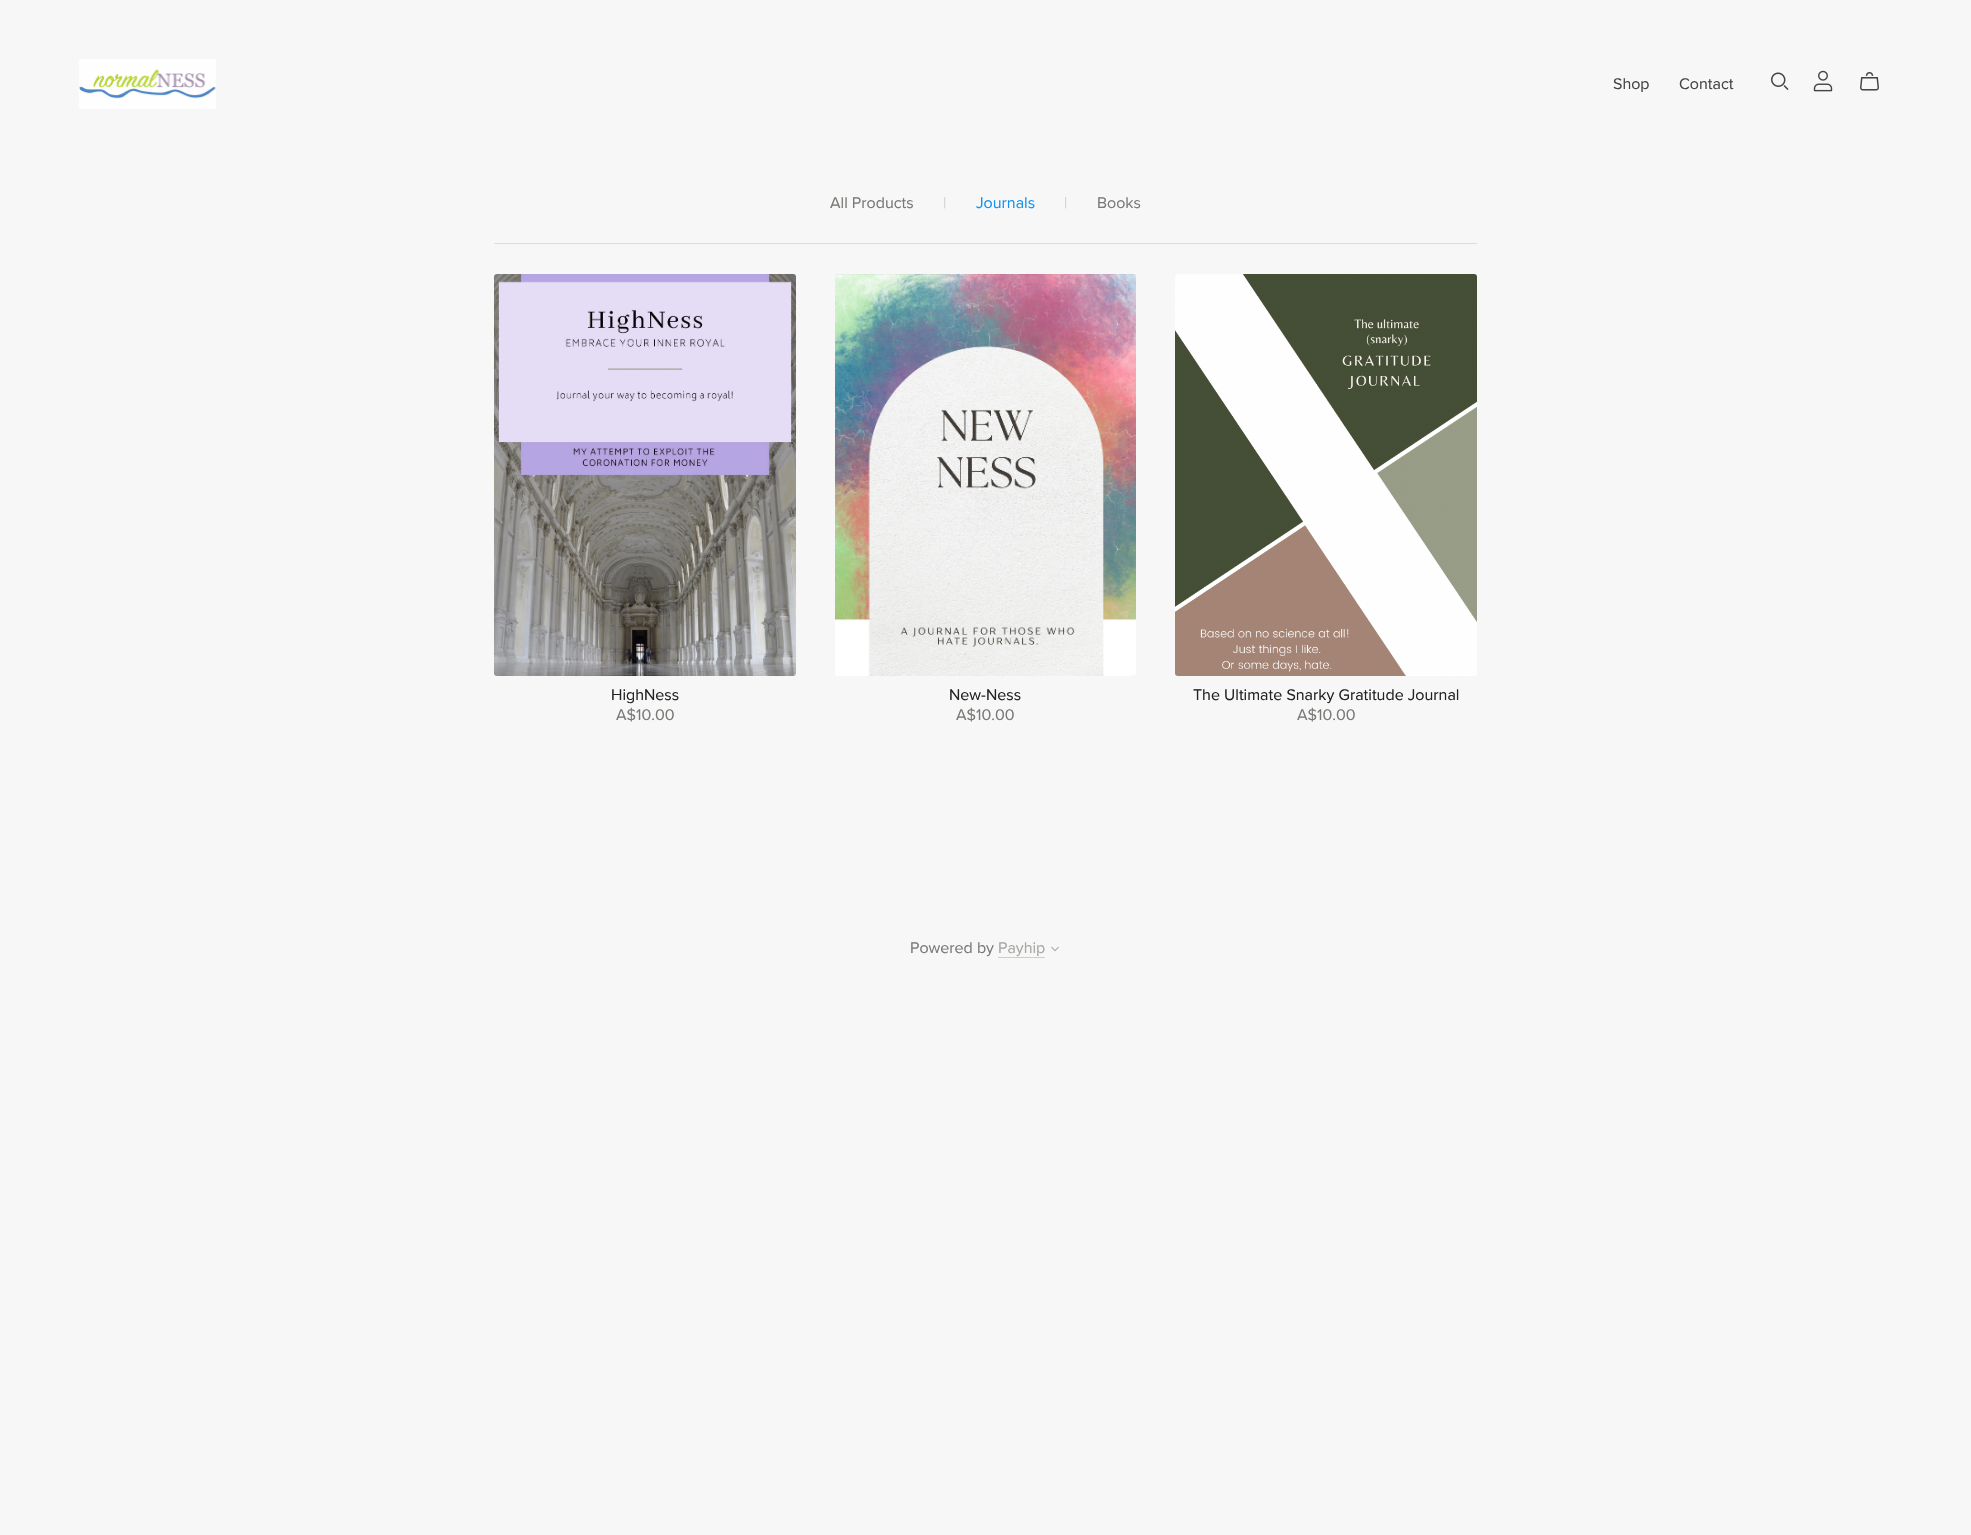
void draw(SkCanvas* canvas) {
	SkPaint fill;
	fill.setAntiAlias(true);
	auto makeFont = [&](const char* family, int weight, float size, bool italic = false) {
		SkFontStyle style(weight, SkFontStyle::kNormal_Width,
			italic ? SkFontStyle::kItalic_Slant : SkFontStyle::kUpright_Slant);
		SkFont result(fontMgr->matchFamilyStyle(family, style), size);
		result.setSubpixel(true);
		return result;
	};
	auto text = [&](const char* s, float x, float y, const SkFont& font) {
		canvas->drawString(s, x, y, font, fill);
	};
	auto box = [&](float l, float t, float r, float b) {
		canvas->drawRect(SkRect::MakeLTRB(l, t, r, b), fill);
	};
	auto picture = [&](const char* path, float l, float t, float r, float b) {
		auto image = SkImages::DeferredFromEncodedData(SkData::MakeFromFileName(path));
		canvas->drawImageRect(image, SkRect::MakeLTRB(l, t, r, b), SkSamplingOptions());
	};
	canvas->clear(0xFFF7F7F7);
	picture("image0.png", 79, 59, 216, 109);
	picture("image1.png", 1771, 72, 1789, 90);
	picture("image2.png", 1813, 70, 1833, 92);
	picture("image3.png", 1860, 72, 1879, 91);
	fill.setColor(0xFFDDDDDD);
	box(494, 243, 1477, 244);
	picture("image4.png", 494, 274, 796, 676);
	picture("image5.png", 835, 274, 1136, 676);
	picture("image6.png", 1175, 274, 1477, 676);
	fill.setColor(0xFFCCCCCC);
	box(998, 957, 1045, 958);
	picture("image7.png", 1051, 946, 1059, 952);
	auto font1 = makeFont("Proxima Nova", 400, 16);
	fill.setColor(0xFF444444);
	text("Shop", 1613, 89, font1);
	text("Contact", 1679, 89, font1);
	fill.setColor(0xFF797875);
	text("All Products", 830, 208, font1);
	fill.setColor(0xFFD1D1D0);
	text("|", 943, 208, font1);
	fill.setColor(0xFF1292EE);
	text("Journals", 976, 208, font1);
	fill.setColor(0xFFD1D1D0);
	text("|", 1064, 208, font1);
	fill.setColor(0xFF797875);
	text("Books", 1097, 208, font1);
	fill.setColor(0xFF222222);
	text("HighNess", 611, 700, font1);
	fill.setColor(0xFF797875);
	text("A$10.00", 616, 720, font1);
	fill.setColor(0xFF222222);
	text("New-Ness", 949, 700, font1);
	fill.setColor(0xFF797875);
	text("A$10.00", 956, 720, font1);
	fill.setColor(0xFF222222);
	text("The Ultimate Snarky Gratitude Journal", 1193, 700, font1);
	fill.setColor(0xFF797875);
	text("A$10.00", 1297, 720, font1);
	text("Powered by", 910, 953, font1);
	fill.setColor(0xFFA8A6A1);
	text("Payhip", 998, 953, font1);
}
